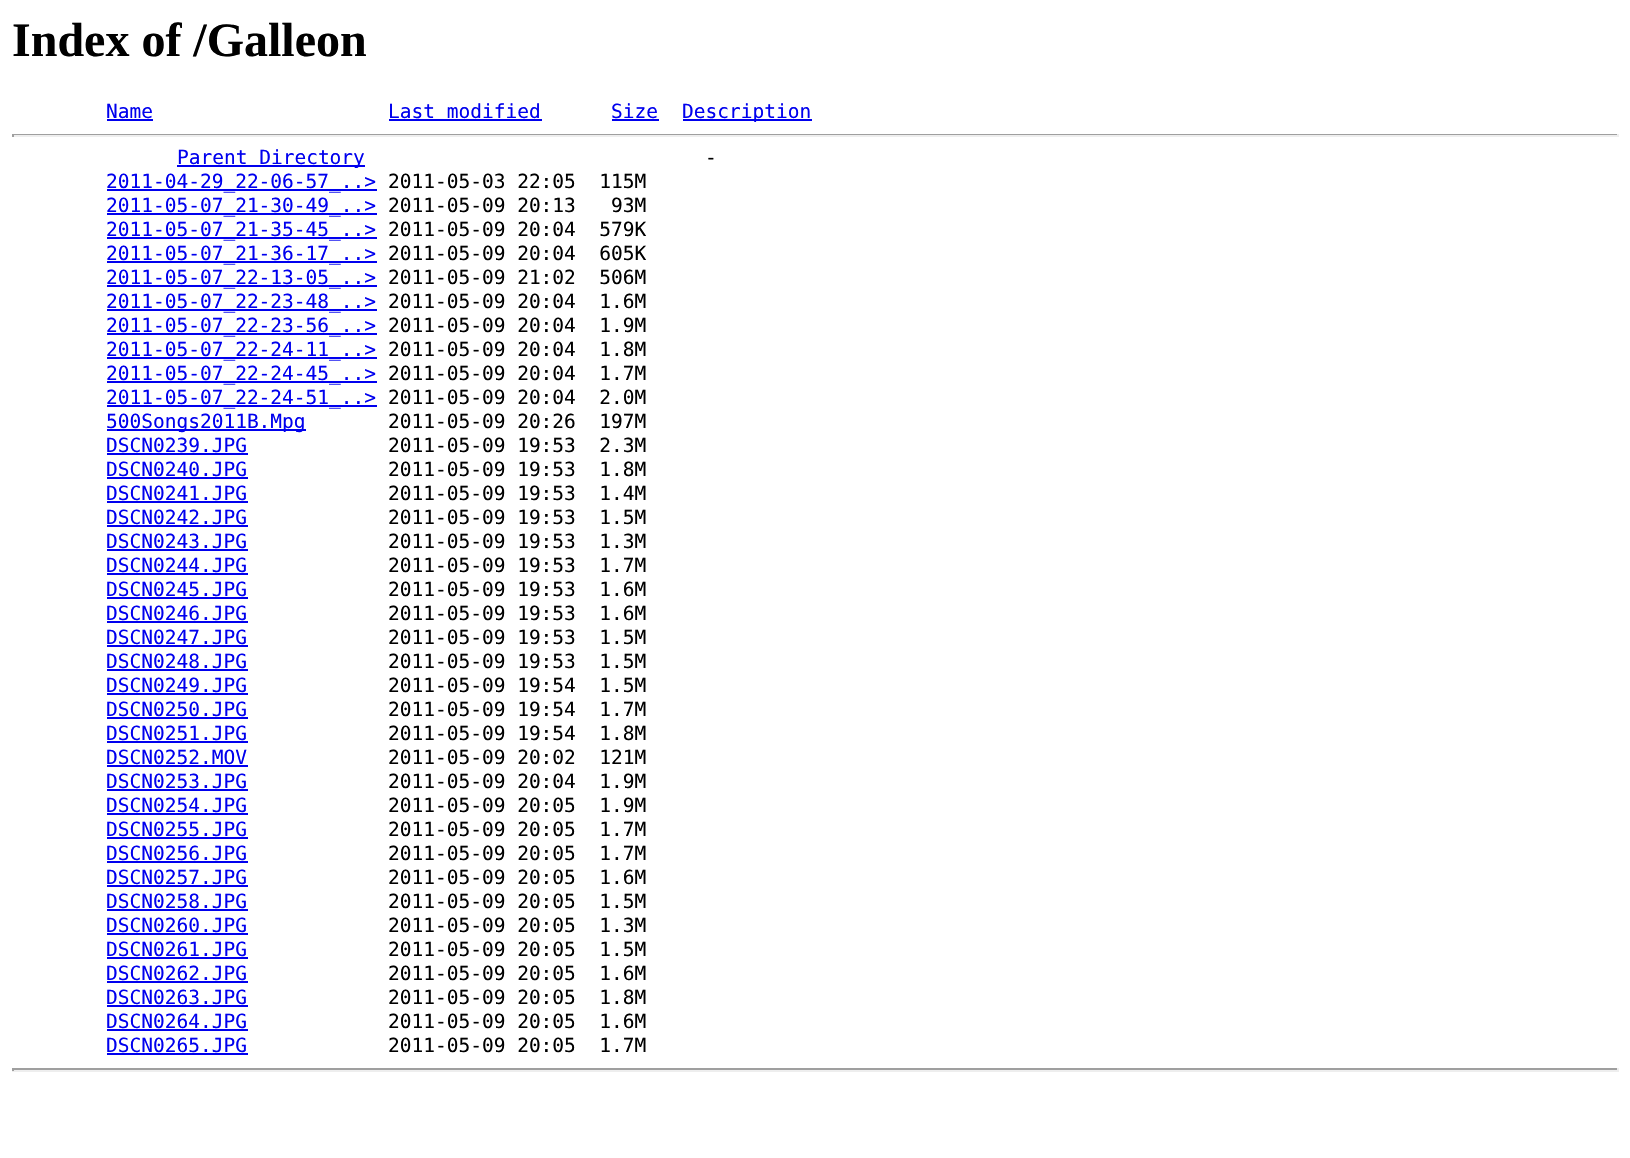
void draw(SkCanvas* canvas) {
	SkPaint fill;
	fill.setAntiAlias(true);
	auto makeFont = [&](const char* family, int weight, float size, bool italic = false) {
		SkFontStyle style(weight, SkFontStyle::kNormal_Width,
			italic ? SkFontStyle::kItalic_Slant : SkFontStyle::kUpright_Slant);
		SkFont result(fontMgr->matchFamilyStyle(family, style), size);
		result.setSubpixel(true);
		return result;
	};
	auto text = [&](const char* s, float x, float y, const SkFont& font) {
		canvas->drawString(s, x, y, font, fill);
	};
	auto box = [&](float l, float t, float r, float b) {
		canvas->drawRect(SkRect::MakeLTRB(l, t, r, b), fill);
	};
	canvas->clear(0xFFFFFFFF);
	fill.setColor(0xFF0000EE);
	box(107, 119, 153, 121);
	box(389, 119, 542, 121);
	box(612, 119, 659, 121);
	box(683, 119, 812, 121);
	fill.setColor(0xFF9F9F9F);
	box(12, 134, 1619, 135);
	fill.setColor(0xFFEEEEEE);
	box(1617, 134, 1619, 137);
	box(12, 135, 1619, 137);
	fill.setColor(0xFF9F9F9F);
	box(12, 134, 14, 137);
	fill.setColor(0xFF0000EE);
	box(177, 165, 365, 167);
	box(107, 189, 377, 191);
	box(107, 213, 377, 215);
	box(107, 237, 377, 239);
	box(107, 261, 377, 263);
	box(107, 285, 377, 287);
	box(107, 309, 377, 311);
	box(107, 333, 377, 335);
	box(107, 357, 377, 359);
	box(107, 381, 377, 383);
	box(107, 405, 377, 407);
	box(107, 429, 306, 431);
	box(107, 453, 248, 455);
	box(107, 477, 248, 479);
	box(107, 501, 248, 503);
	box(107, 525, 248, 527);
	box(107, 549, 248, 551);
	box(107, 573, 248, 575);
	box(107, 597, 248, 599);
	box(107, 621, 248, 623);
	box(107, 645, 248, 647);
	box(107, 669, 248, 671);
	box(107, 693, 248, 695);
	box(107, 717, 248, 719);
	box(107, 741, 248, 743);
	box(107, 765, 248, 767);
	box(107, 789, 248, 791);
	box(107, 813, 248, 815);
	box(107, 837, 248, 839);
	box(107, 861, 248, 863);
	box(107, 885, 248, 887);
	box(107, 909, 248, 911);
	box(107, 933, 248, 935);
	box(107, 957, 248, 959);
	box(107, 981, 248, 983);
	box(107, 1005, 248, 1007);
	box(107, 1029, 248, 1031);
	box(107, 1053, 248, 1055);
	fill.setColor(0xFF9F9F9F);
	box(12, 1068, 1619, 1070);
	fill.setColor(0xFFEEEEEE);
	box(1617, 1068, 1619, 1071);
	box(12, 1070, 1619, 1072);
	fill.setColor(0xFF9F9F9F);
	box(12, 1068, 14, 1071);
	auto font1 = makeFont("Liberation Serif", 700, 48);
	fill.setColor(0xFF000000);
	text("Index of /Galleon", 12, 56, font1);
	auto font2 = makeFont("DejaVu Sans Mono", 400, 19.5f);
	fill.setColor(0xFF0000EE);
	text("Name", 106, 118, font2);
	text("Last modified", 388, 118, font2);
	text("Size", 611, 118, font2);
	text("Description", 682, 118, font2);
	text("Parent Directory", 177, 164, font2);
	fill.setColor(0xFF000000);
	text("-", 705, 164, font2);
	fill.setColor(0xFF0000EE);
	text("2011-04-29_22-06-57_..>", 106, 188, font2);
	fill.setColor(0xFF000000);
	text("2011-05-03 22:05  115M", 388, 188, font2);
	fill.setColor(0xFF0000EE);
	text("2011-05-07_21-30-49_..>", 106, 212, font2);
	fill.setColor(0xFF000000);
	text("2011-05-09 20:13   93M", 388, 212, font2);
	fill.setColor(0xFF0000EE);
	text("2011-05-07_21-35-45_..>", 106, 236, font2);
	fill.setColor(0xFF000000);
	text("2011-05-09 20:04  579K", 388, 236, font2);
	fill.setColor(0xFF0000EE);
	text("2011-05-07_21-36-17_..>", 106, 260, font2);
	fill.setColor(0xFF000000);
	text("2011-05-09 20:04  605K", 388, 260, font2);
	fill.setColor(0xFF0000EE);
	text("2011-05-07_22-13-05_..>", 106, 284, font2);
	fill.setColor(0xFF000000);
	text("2011-05-09 21:02  506M", 388, 284, font2);
	fill.setColor(0xFF0000EE);
	text("2011-05-07_22-23-48_..>", 106, 308, font2);
	fill.setColor(0xFF000000);
	text("2011-05-09 20:04  1.6M", 388, 308, font2);
	fill.setColor(0xFF0000EE);
	text("2011-05-07_22-23-56_..>", 106, 332, font2);
	fill.setColor(0xFF000000);
	text("2011-05-09 20:04  1.9M", 388, 332, font2);
	fill.setColor(0xFF0000EE);
	text("2011-05-07_22-24-11_..>", 106, 356, font2);
	fill.setColor(0xFF000000);
	text("2011-05-09 20:04  1.8M", 388, 356, font2);
	fill.setColor(0xFF0000EE);
	text("2011-05-07_22-24-45_..>", 106, 380, font2);
	fill.setColor(0xFF000000);
	text("2011-05-09 20:04  1.7M", 388, 380, font2);
	fill.setColor(0xFF0000EE);
	text("2011-05-07_22-24-51_..>", 106, 404, font2);
	fill.setColor(0xFF000000);
	text("2011-05-09 20:04  2.0M", 388, 404, font2);
	fill.setColor(0xFF0000EE);
	text("500Songs2011B.Mpg", 106, 428, font2);
	fill.setColor(0xFF000000);
	text("2011-05-09 20:26  197M", 388, 428, font2);
	fill.setColor(0xFF0000EE);
	text("DSCN0239.JPG", 106, 452, font2);
	fill.setColor(0xFF000000);
	text("2011-05-09 19:53  2.3M", 388, 452, font2);
	fill.setColor(0xFF0000EE);
	text("DSCN0240.JPG", 106, 476, font2);
	fill.setColor(0xFF000000);
	text("2011-05-09 19:53  1.8M", 388, 476, font2);
	fill.setColor(0xFF0000EE);
	text("DSCN0241.JPG", 106, 500, font2);
	fill.setColor(0xFF000000);
	text("2011-05-09 19:53  1.4M", 388, 500, font2);
	fill.setColor(0xFF0000EE);
	text("DSCN0242.JPG", 106, 524, font2);
	fill.setColor(0xFF000000);
	text("2011-05-09 19:53  1.5M", 388, 524, font2);
	fill.setColor(0xFF0000EE);
	text("DSCN0243.JPG", 106, 548, font2);
	fill.setColor(0xFF000000);
	text("2011-05-09 19:53  1.3M", 388, 548, font2);
	fill.setColor(0xFF0000EE);
	text("DSCN0244.JPG", 106, 572, font2);
	fill.setColor(0xFF000000);
	text("2011-05-09 19:53  1.7M", 388, 572, font2);
	fill.setColor(0xFF0000EE);
	text("DSCN0245.JPG", 106, 596, font2);
	fill.setColor(0xFF000000);
	text("2011-05-09 19:53  1.6M", 388, 596, font2);
	fill.setColor(0xFF0000EE);
	text("DSCN0246.JPG", 106, 620, font2);
	fill.setColor(0xFF000000);
	text("2011-05-09 19:53  1.6M", 388, 620, font2);
	fill.setColor(0xFF0000EE);
	text("DSCN0247.JPG", 106, 644, font2);
	fill.setColor(0xFF000000);
	text("2011-05-09 19:53  1.5M", 388, 644, font2);
	fill.setColor(0xFF0000EE);
	text("DSCN0248.JPG", 106, 668, font2);
	fill.setColor(0xFF000000);
	text("2011-05-09 19:53  1.5M", 388, 668, font2);
	fill.setColor(0xFF0000EE);
	text("DSCN0249.JPG", 106, 692, font2);
	fill.setColor(0xFF000000);
	text("2011-05-09 19:54  1.5M", 388, 692, font2);
	fill.setColor(0xFF0000EE);
	text("DSCN0250.JPG", 106, 716, font2);
	fill.setColor(0xFF000000);
	text("2011-05-09 19:54  1.7M", 388, 716, font2);
	fill.setColor(0xFF0000EE);
	text("DSCN0251.JPG", 106, 740, font2);
	fill.setColor(0xFF000000);
	text("2011-05-09 19:54  1.8M", 388, 740, font2);
	fill.setColor(0xFF0000EE);
	text("DSCN0252.MOV", 106, 764, font2);
	fill.setColor(0xFF000000);
	text("2011-05-09 20:02  121M", 388, 764, font2);
	fill.setColor(0xFF0000EE);
	text("DSCN0253.JPG", 106, 788, font2);
	fill.setColor(0xFF000000);
	text("2011-05-09 20:04  1.9M", 388, 788, font2);
	fill.setColor(0xFF0000EE);
	text("DSCN0254.JPG", 106, 812, font2);
	fill.setColor(0xFF000000);
	text("2011-05-09 20:05  1.9M", 388, 812, font2);
	fill.setColor(0xFF0000EE);
	text("DSCN0255.JPG", 106, 836, font2);
	fill.setColor(0xFF000000);
	text("2011-05-09 20:05  1.7M", 388, 836, font2);
	fill.setColor(0xFF0000EE);
	text("DSCN0256.JPG", 106, 860, font2);
	fill.setColor(0xFF000000);
	text("2011-05-09 20:05  1.7M", 388, 860, font2);
	fill.setColor(0xFF0000EE);
	text("DSCN0257.JPG", 106, 884, font2);
	fill.setColor(0xFF000000);
	text("2011-05-09 20:05  1.6M", 388, 884, font2);
	fill.setColor(0xFF0000EE);
	text("DSCN0258.JPG", 106, 908, font2);
	fill.setColor(0xFF000000);
	text("2011-05-09 20:05  1.5M", 388, 908, font2);
	fill.setColor(0xFF0000EE);
	text("DSCN0260.JPG", 106, 932, font2);
	fill.setColor(0xFF000000);
	text("2011-05-09 20:05  1.3M", 388, 932, font2);
	fill.setColor(0xFF0000EE);
	text("DSCN0261.JPG", 106, 956, font2);
	fill.setColor(0xFF000000);
	text("2011-05-09 20:05  1.5M", 388, 956, font2);
	fill.setColor(0xFF0000EE);
	text("DSCN0262.JPG", 106, 980, font2);
	fill.setColor(0xFF000000);
	text("2011-05-09 20:05  1.6M", 388, 980, font2);
	fill.setColor(0xFF0000EE);
	text("DSCN0263.JPG", 106, 1004, font2);
	fill.setColor(0xFF000000);
	text("2011-05-09 20:05  1.8M", 388, 1004, font2);
	fill.setColor(0xFF0000EE);
	text("DSCN0264.JPG", 106, 1028, font2);
	fill.setColor(0xFF000000);
	text("2011-05-09 20:05  1.6M", 388, 1028, font2);
	fill.setColor(0xFF0000EE);
	text("DSCN0265.JPG", 106, 1052, font2);
	fill.setColor(0xFF000000);
	text("2011-05-09 20:05  1.7M", 388, 1052, font2);
}
